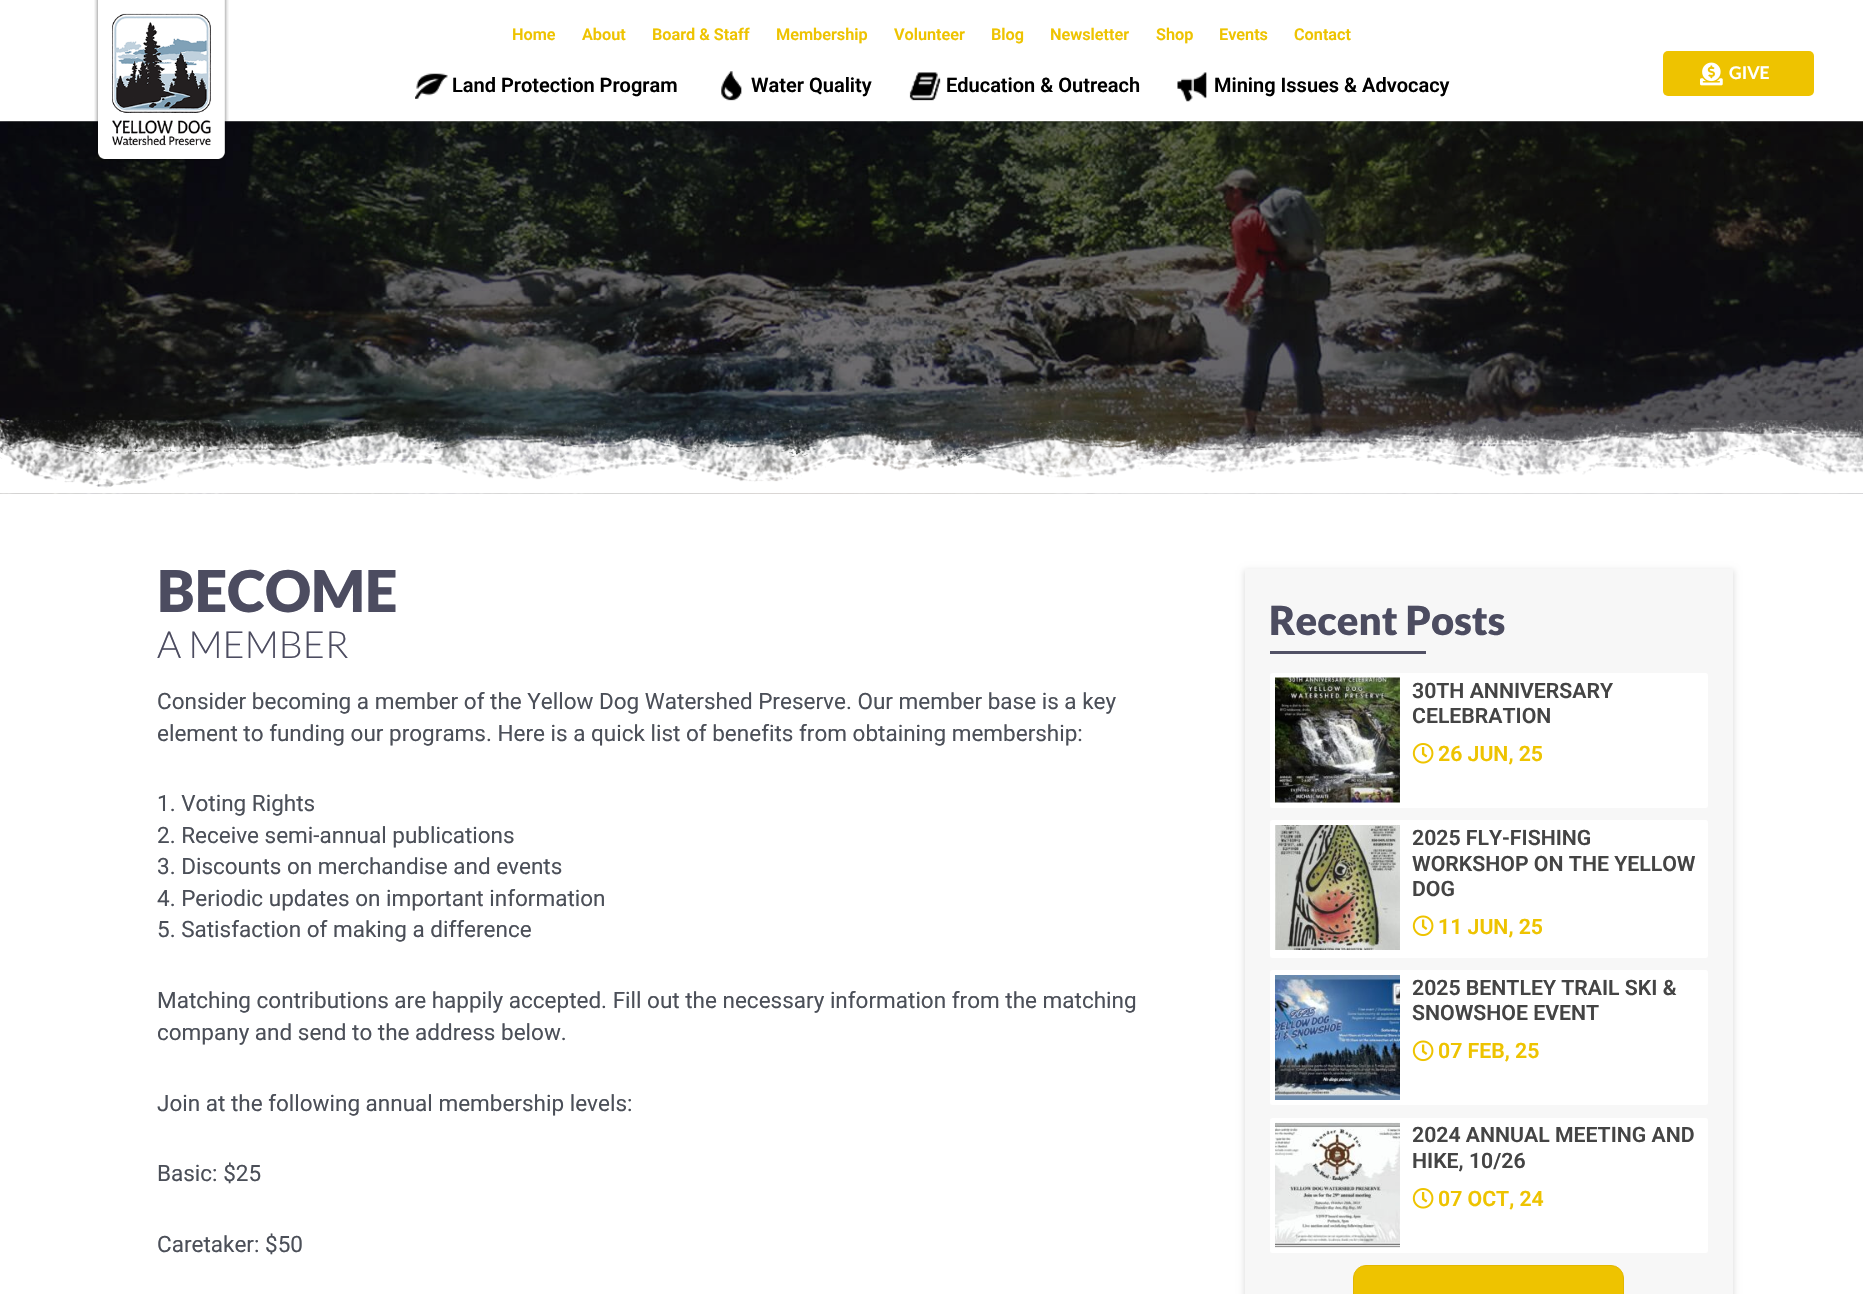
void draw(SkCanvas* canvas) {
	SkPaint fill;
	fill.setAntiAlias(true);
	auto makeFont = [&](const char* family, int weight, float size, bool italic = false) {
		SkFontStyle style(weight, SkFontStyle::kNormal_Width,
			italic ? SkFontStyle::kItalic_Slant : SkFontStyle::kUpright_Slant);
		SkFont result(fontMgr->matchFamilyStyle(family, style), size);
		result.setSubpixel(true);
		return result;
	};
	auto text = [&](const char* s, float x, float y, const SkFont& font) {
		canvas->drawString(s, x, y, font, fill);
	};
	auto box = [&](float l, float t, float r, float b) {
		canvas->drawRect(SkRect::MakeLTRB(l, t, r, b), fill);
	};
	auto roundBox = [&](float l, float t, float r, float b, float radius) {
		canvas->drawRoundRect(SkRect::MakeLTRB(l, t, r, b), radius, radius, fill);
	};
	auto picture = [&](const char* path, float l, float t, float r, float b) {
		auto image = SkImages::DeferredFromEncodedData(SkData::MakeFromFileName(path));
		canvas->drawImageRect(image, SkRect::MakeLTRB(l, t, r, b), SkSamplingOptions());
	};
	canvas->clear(0xFFFFFFFF);
	canvas->save();
	canvas->clipRect(SkRect::MakeLTRB(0, 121, 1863, 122));
	fill.setColor(0x26000000);
	fill.setMaskFilter(SkMaskFilter::MakeBlur(kNormal_SkBlurStyle, 6));
	canvas->drawRect(SkRect::MakeLTRB(0, 6, 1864, 128), fill);
	fill.setMaskFilter(nullptr);
	canvas->restore();
	picture("image6.png", 0, 121, 1863, 494);
	picture("image0.png", 94, 0, 229, 161);
	picture("image1.png", 415, 73, 448, 99);
	picture("image2.png", 721, 71, 742, 101);
	picture("image3.png", 909, 72, 941, 101);
	picture("image4.png", 1177, 72, 1207, 102);
	fill.setColor(0xFFEEC300);
	roundBox(1663, 51, 1814, 96, 5);
	picture("image5.png", 1700, 62, 1723, 86);
	picture("image7.png", 0, 420, 1863, 494);
	fill.setColor(0xFFE0E0E0);
	fill.setMaskFilter(SkMaskFilter::MakeBlur(kNormal_SkBlurStyle, 3));
	canvas->drawRect(SkRect::MakeLTRB(1244, 570, 1734, 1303), fill);
	fill.setMaskFilter(nullptr);
	fill.setColor(0xFFF7F7F7);
	box(1245, 569, 1733, 1294);
	fill.setColor(0xFF515165);
	box(1270, 651, 1426, 654);
	fill.setColor(0xFFFFFFFF);
	roundBox(1270, 673, 1708, 808, 2.5f);
	picture("image8.png", 1275, 677, 1400, 803);
	picture("image9.png", 1412, 743, 1434, 764);
	roundBox(1270, 820, 1708, 958, 2.5f);
	picture("image10.png", 1275, 825, 1400, 950);
	picture("image11.png", 1412, 915, 1434, 937);
	roundBox(1270, 970, 1708, 1105, 2.5f);
	picture("image12.png", 1275, 975, 1400, 1100);
	picture("image11.png", 1412, 1040, 1434, 1062);
	roundBox(1270, 1118, 1708, 1253, 2.5f);
	picture("image13.png", 1275, 1122, 1400, 1248);
	picture("image9.png", 1412, 1188, 1434, 1209);
	fill.setColor(0xFFEEC300);
	canvas->drawRoundRect(SkRect::MakeLTRB(1353.5f, 1265.5f, 1623.5f, 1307.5f), 12.5f, 12.5f, fill);
	fill.setStyle(SkPaint::kStroke_Style);
	fill.setStrokeWidth(1);
	fill.setColor(0xFFE2B700);
	canvas->drawRoundRect(SkRect::MakeLTRB(1353.5f, 1265.5f, 1623.5f, 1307.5f), 12.5f, 12.5f, fill);
	auto font1 = makeFont("Roboto", 600, 16.25f);
	fill.setStyle(SkPaint::kFill_Style);
	fill.setColor(0xFFEEC300);
	text("Home", 512, 40, font1);
	text("About", 582, 40, font1);
	text("Board & Staff", 652, 40, font1);
	text("Membership", 776, 40, font1);
	text("Volunteer", 894, 40, font1);
	text("Blog", 991, 40, font1);
	text("Newsletter", 1050, 40, font1);
	text("Shop", 1156, 40, font1);
	text("Events", 1219, 40, font1);
	text("Contact", 1294, 40, font1);
	auto font2 = makeFont("Roboto", 600, 20);
	fill.setColor(0xFF000000);
	text("Land Protection Program", 452, 92, font2);
	text("Water Quality", 751, 92, font2);
	text("Education & Outreach", 946, 92, font2);
	text("Mining Issues & Advocacy", 1214, 92, font2);
	auto font3 = makeFont("Lato", 700, 17.5f);
	fill.setColor(0xFFFFFFFF);
	text("GIVE", 1729, 79, font3);
	auto font4 = makeFont("Lato", 900, 57.5f);
	fill.setColor(0xFF4C4C60);
	text("BECOME", 157, 612, font4);
	auto font5 = makeFont("Lato", 300, 37.5f);
	text("A MEMBER", 157, 658, font5);
	auto font6 = makeFont("Roboto", 400, 22.5f);
	fill.setColor(0xFF4B4F58);
	text("Consider becoming a member of the Yellow Dog Watershed Preserve. Our member base is a key", 157, 709, font6);
	text("element to funding our programs. Here is a quick list of benefits from obtaining membership:", 157, 741, font6);
	text("1. Voting Rights", 157, 811, font6);
	text("2. Receive semi-annual publications", 157, 843, font6);
	text("3. Discounts on merchandise and events", 157, 874, font6);
	text("4. Periodic updates on important information", 157, 906, font6);
	text("5. Satisfaction of making a difference", 157, 937, font6);
	text("Matching contributions are happily accepted. Fill out the necessary information from the matching", 157, 1008, font6);
	text("company and send to the address below.", 157, 1040, font6);
	text("Join at the following annual membership levels:", 157, 1111, font6);
	text("Basic: $25", 157, 1181, font6);
	text("Caretaker: $50", 157, 1252, font6);
	auto font7 = makeFont("Lato", 900, 40);
	fill.setColor(0xFF4C4C60);
	text("Recent Posts", 1269, 635, font7);
	auto font8 = makeFont("Roboto", 600, 21.25f);
	fill.setColor(0xFF444444);
	text("30TH ANNIVERSARY", 1412, 698, font8);
	text("CELEBRATION", 1412, 723, font8);
	fill.setColor(0xFFEEC300);
	text("26 JUN, 25", 1438, 761, font8);
	fill.setColor(0xFF444444);
	text("2025 FLY-FISHING", 1412, 845, font8);
	text("WORKSHOP ON THE YELLOW", 1412, 871, font8);
	text("DOG", 1412, 896, font8);
	fill.setColor(0xFFEEC300);
	text("11 JUN, 25", 1438, 934, font8);
	fill.setColor(0xFF444444);
	text("2025 BENTLEY TRAIL SKI &", 1412, 995, font8);
	text("SNOWSHOE EVENT", 1412, 1020, font8);
	fill.setColor(0xFFEEC300);
	text("07 FEB, 25", 1438, 1058, font8);
	fill.setColor(0xFF444444);
	text("2024 ANNUAL MEETING AND", 1412, 1142, font8);
	text("HIKE, 10/26", 1412, 1168, font8);
	fill.setColor(0xFFEEC300);
	text("07 OCT, 24", 1438, 1206, font8);
}
